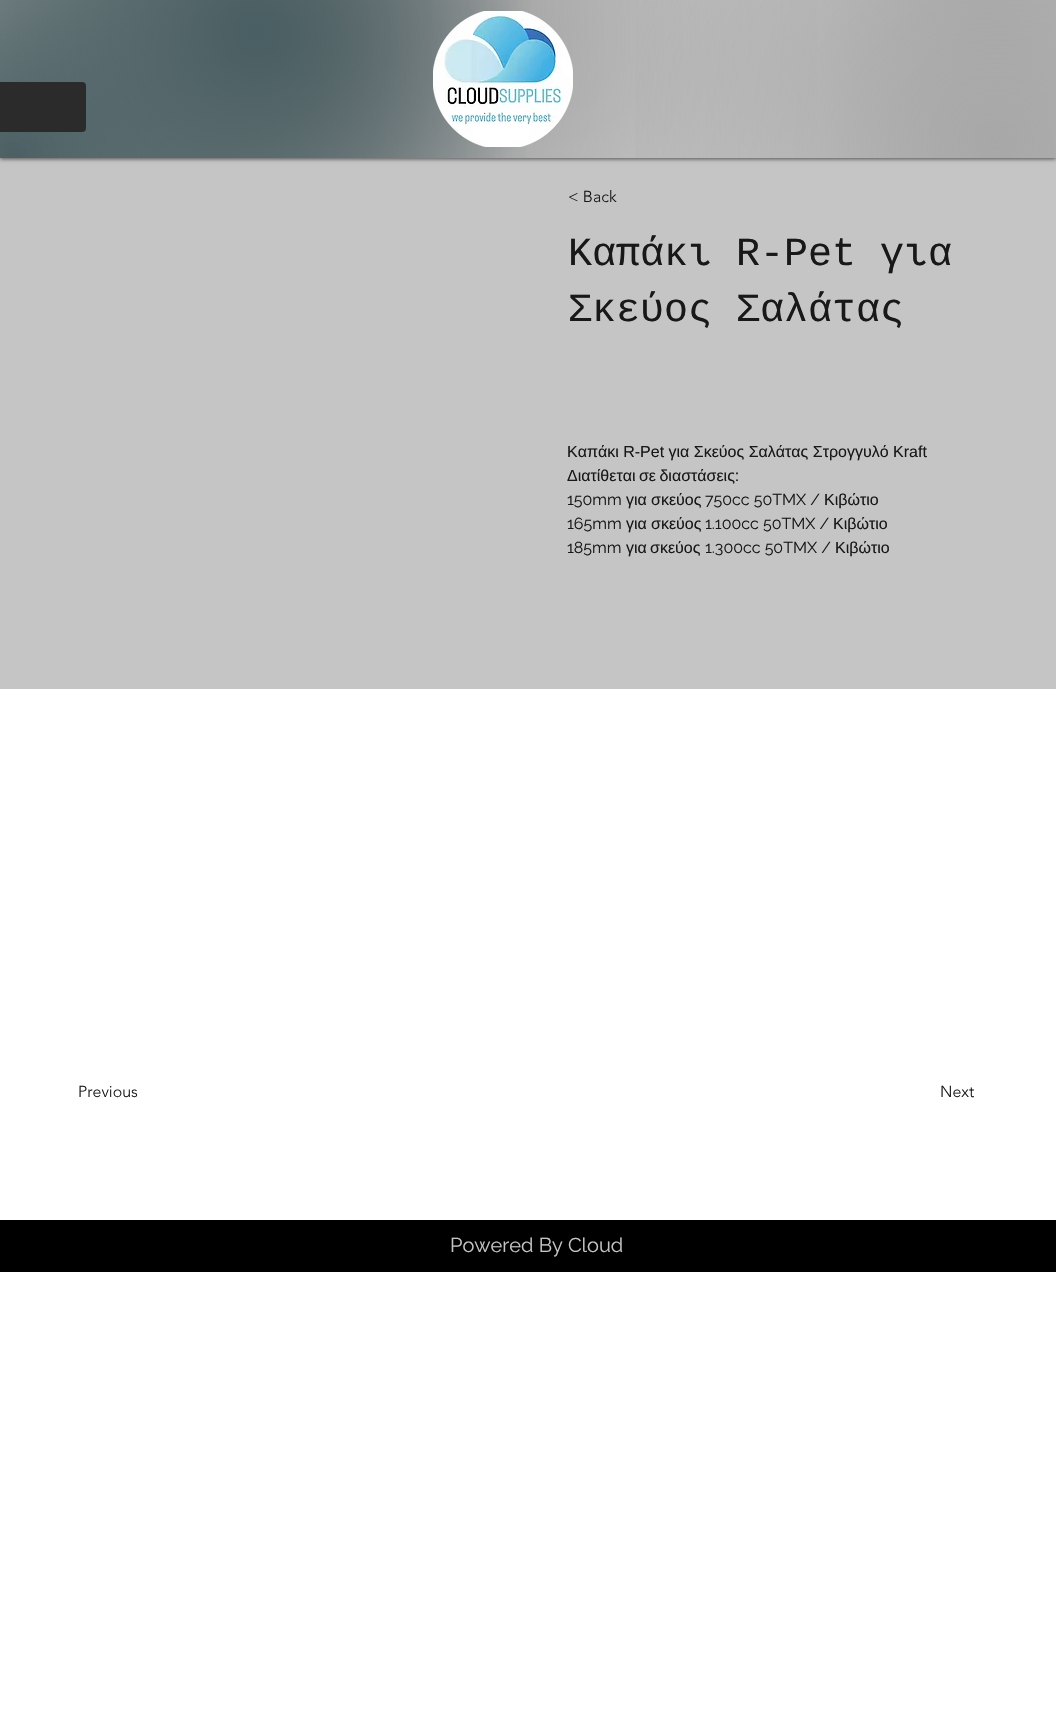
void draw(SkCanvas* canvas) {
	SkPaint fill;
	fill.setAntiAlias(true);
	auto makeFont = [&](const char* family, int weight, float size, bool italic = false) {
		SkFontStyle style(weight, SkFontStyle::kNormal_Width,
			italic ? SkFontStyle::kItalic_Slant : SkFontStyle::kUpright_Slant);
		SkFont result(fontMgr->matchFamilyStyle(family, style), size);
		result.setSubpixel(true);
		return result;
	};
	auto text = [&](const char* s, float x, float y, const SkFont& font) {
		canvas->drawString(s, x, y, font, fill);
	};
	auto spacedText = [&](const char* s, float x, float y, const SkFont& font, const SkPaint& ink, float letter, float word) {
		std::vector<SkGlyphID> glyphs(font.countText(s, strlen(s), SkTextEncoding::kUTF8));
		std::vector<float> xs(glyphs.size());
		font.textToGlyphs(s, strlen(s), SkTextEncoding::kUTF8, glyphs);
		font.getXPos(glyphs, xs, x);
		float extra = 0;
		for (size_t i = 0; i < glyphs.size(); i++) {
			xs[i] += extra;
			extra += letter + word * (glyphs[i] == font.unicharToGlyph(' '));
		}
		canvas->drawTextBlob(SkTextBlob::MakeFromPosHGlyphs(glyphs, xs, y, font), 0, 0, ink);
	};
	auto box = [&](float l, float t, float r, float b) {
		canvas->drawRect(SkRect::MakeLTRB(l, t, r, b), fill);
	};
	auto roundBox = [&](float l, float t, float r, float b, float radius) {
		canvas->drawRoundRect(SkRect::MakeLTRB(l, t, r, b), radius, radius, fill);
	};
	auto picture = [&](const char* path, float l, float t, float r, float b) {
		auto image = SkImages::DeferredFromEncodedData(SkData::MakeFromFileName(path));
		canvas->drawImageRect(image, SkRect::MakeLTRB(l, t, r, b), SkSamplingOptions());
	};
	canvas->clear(0xFFFFFFFF);
	fill.setColor(0xFFC5C5C5);
	box(0, 158, 1056, 689);
	fill.setColor(0x99000000);
	fill.setMaskFilter(SkMaskFilter::MakeBlur(kNormal_SkBlurStyle, 2));
	canvas->drawRect(SkRect::MakeLTRB(0, 1, 1056, 159), fill);
	fill.setMaskFilter(nullptr);
	{
		const SkColor colors[] = {0xFFADADAD, 0xFFFFFFFF};
		const float stops[] = {0, 0.7f};
		fill.setShader(SkGradientShader::MakeRadial({989, 18}, 999, colors, stops, 2, SkTileMode::kClamp));
		fill.setAlpha(255);
	}
	box(0, 0, 1056, 158);
	{
		const SkColor colors[] = {0xFF7C7C7C, 0x007C7C7C};
		const float stops[] = {0, 0.7f};
		fill.setShader(SkGradientShader::MakeRadial({295, 37}, 771, colors, stops, 2, SkTileMode::kClamp));
		fill.setAlpha(255);
	}
	box(0, 0, 817, 158);
	{
		const SkColor colors[] = {0xFC495E62, 0x00495E62};
		const float stops[] = {0, 0.5f};
		fill.setShader(SkGradientShader::MakeRadial({13, 158}, 1055, colors, stops, 2, SkTileMode::kClamp));
		fill.setAlpha(255);
	}
	box(0, 0, 527, 158);
	{
		const SkColor colors[] = {0xFFA7A7A7, 0x00A7A7A7};
		const float stops[] = {0, 0.4f};
		fill.setShader(SkGradientShader::MakeRadial({996, 142}, 1006, colors, stops, 2, SkTileMode::kClamp));
		fill.setAlpha(255);
	}
	box(635, 0, 1056, 158);
	{
		const SkColor colors[] = {0xFF495E62, 0x00495E62};
		const float stops[] = {0, 0.35f};
		fill.setShader(SkGradientShader::MakeRadial({255, 33}, 811, colors, stops, 2, SkTileMode::kClamp));
		fill.setAlpha(255);
	}
	box(0, 0, 531, 158);
	fill.setShader(nullptr);
	fill.setColor(0xFF2B2B2B);
	roundBox(-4, 82, 86, 132, 4);
	picture("image0.png", 433, 11, 573, 147);
	fill.setColor(0xFF000000);
	box(0, 1220, 1056, 1272);
	auto font1 = makeFont("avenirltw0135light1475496", 300, 16);
	fill.setColor(0xFF181818);
	text("< Back", 568, 202, font1);
	auto font2 = makeFont("Liberation Mono", 400, 40);
	text("Καπάκι R-Pet για", 568, 265, font2);
	text("Σκεύος Σαλάτας", 568, 321, font2);
	auto font3 = makeFont("Liberation Sans", 400, 16);
	text("Καπάκι R-Pet για Σκεύος Σαλάτας Στρογγυλό Kraft", 567, 457, font3);
	spacedText("Διατίθεται σε διαστάσεις:", 567, 481, font3, fill, 0, -1);
	auto font4 = makeFont("Raleway", 400, 16);
	text("150mm", 567, 505, font4);
	text("για", 626, 505, font3);
	text("σκεύος", 651, 505, font3);
	text("750cc 50TMX /", 705, 505, font4);
	text("Κιβώτιο", 824, 505, font3);
	text("165mm", 567, 529, font4);
	text("για", 626, 529, font3);
	text("σκεύος", 651, 529, font3);
	text("1.100cc 50TMX /", 705, 529, font4);
	text("Κιβώτιο", 833, 529, font3);
	text("185mm", 567, 553, font4);
	text("για", 626, 553, font3);
	text("σκεύος", 650, 553, font3);
	text("1.300cc 50TMX /", 705, 553, font4);
	text("Κιβώτιο", 835, 553, font3);
	text("Previous", 78, 1097, font1);
	text("Next", 940, 1097, font1);
	auto font5 = makeFont("Raleway", 400, 20);
	fill.setColor(0xFFC5C5C5);
	text("Powered By Cloud", 450, 1252, font5);
}
